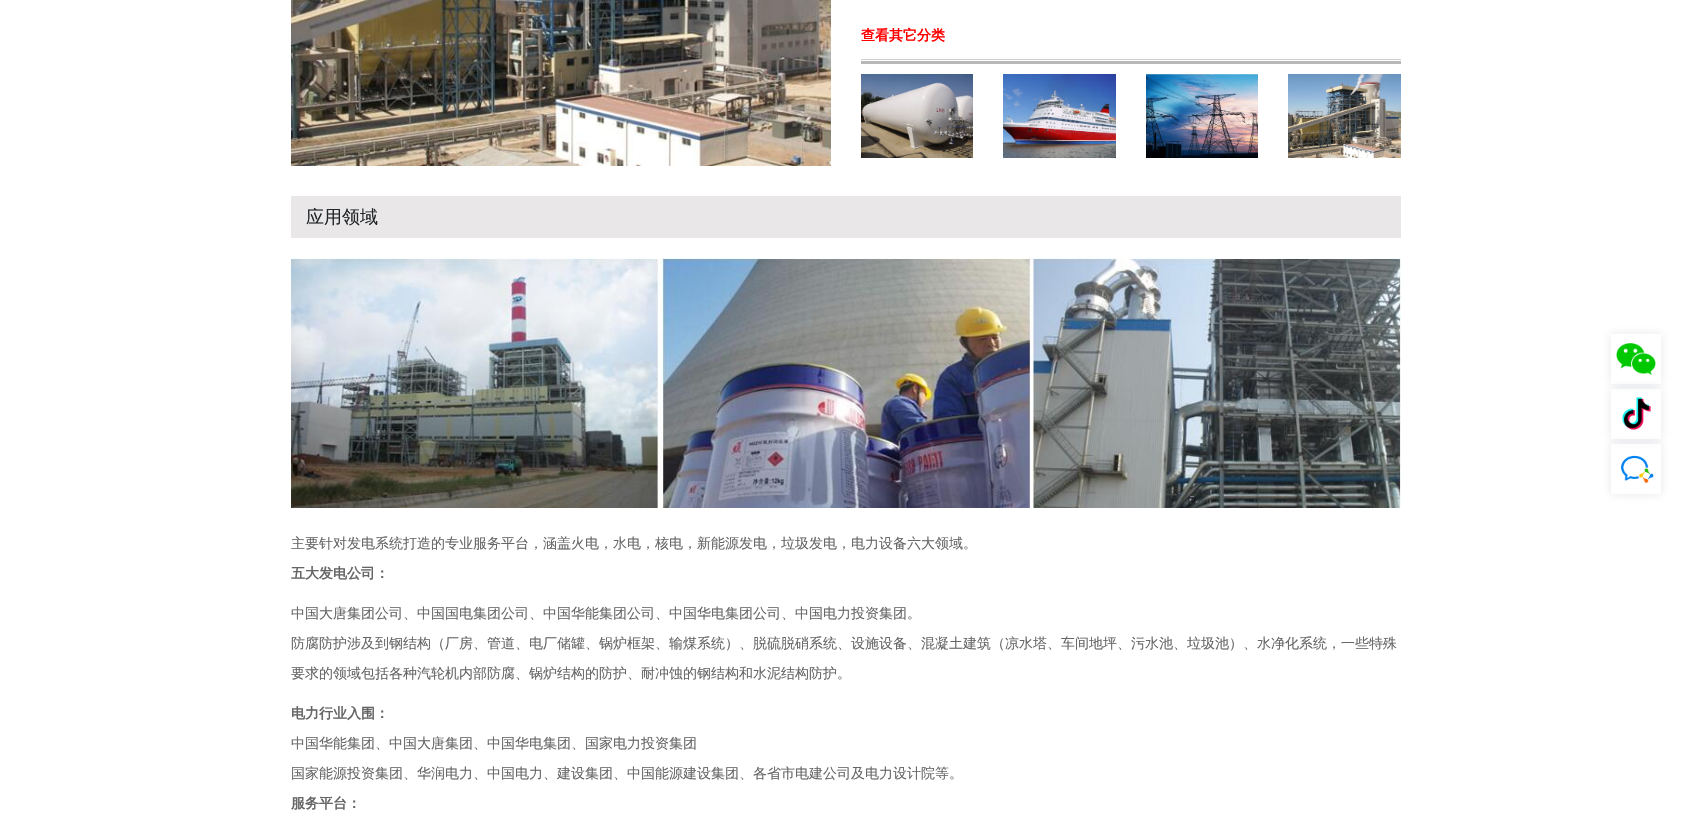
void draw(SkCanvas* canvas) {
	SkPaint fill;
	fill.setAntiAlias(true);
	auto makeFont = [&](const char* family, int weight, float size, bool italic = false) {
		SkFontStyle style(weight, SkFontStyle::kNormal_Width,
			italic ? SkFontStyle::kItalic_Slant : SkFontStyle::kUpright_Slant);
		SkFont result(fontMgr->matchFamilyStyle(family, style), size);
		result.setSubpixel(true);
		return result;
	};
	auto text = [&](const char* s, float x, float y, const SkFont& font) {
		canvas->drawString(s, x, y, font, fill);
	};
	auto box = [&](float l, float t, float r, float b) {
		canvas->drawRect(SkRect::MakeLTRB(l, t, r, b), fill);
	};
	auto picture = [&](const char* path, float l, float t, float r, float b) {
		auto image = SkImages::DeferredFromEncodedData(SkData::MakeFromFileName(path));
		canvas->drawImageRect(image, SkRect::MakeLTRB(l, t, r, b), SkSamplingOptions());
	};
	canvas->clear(0xFFFFFFFF);
	picture("image0.png", 291, 0, 831, 166);
	picture("image1.png", 861, 59, 1401, 64);
	picture("image2.png", 861, 74, 973, 158);
	picture("image3.png", 1003, 74, 1116, 158);
	picture("image4.png", 1146, 74, 1258, 158);
	picture("image5.png", 1288, 74, 1401, 158);
	fill.setColor(0xFFE9E7E7);
	box(291, 196, 1401, 238);
	picture("image6.png", 291, 258, 1401, 508);
	canvas->save();
	canvas->clipPath(SkPathBuilder(SkPathFillType::kEvenOdd).moveTo(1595, 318).lineTo(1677, 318).lineTo(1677, 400).lineTo(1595, 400).close().moveTo(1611, 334).lineTo(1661, 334).lineTo(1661, 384).lineTo(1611, 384).close().detach(), true);
	fill.setColor(0x1A142243);
	fill.setMaskFilter(SkMaskFilter::MakeBlur(kNormal_SkBlurStyle, 5));
	canvas->drawRect(SkRect::MakeLTRB(1611, 334, 1661, 384), fill);
	fill.setMaskFilter(nullptr);
	canvas->restore();
	picture("image7.png", 1616, 343, 1656, 375);
	canvas->save();
	canvas->clipPath(SkPathBuilder(SkPathFillType::kEvenOdd).moveTo(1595, 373).lineTo(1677, 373).lineTo(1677, 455).lineTo(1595, 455).close().moveTo(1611, 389).lineTo(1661, 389).lineTo(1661, 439).lineTo(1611, 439).close().detach(), true);
	fill.setMaskFilter(SkMaskFilter::MakeBlur(kNormal_SkBlurStyle, 5));
	canvas->drawRect(SkRect::MakeLTRB(1611, 389, 1661, 439), fill);
	fill.setMaskFilter(nullptr);
	canvas->restore();
	picture("image8.png", 1622, 397, 1652, 430);
	canvas->save();
	canvas->clipPath(SkPathBuilder(SkPathFillType::kEvenOdd).moveTo(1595, 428).lineTo(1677, 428).lineTo(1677, 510).lineTo(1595, 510).close().moveTo(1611, 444).lineTo(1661, 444).lineTo(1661, 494).lineTo(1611, 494).close().detach(), true);
	fill.setMaskFilter(SkMaskFilter::MakeBlur(kNormal_SkBlurStyle, 5));
	canvas->drawRect(SkRect::MakeLTRB(1611, 444, 1661, 494), fill);
	fill.setMaskFilter(nullptr);
	canvas->restore();
	picture("image9.png", 1621, 455, 1654, 484);
	auto font1 = makeFont("WenQuanYi Zen Hei", 700, 14);
	fill.setColor(0xFFFF0000);
	text("查看其它分类", 861, 40, font1);
	auto font2 = makeFont("WenQuanYi Zen Hei", 500, 18);
	fill.setColor(0xFF212529);
	text("应用领域", 306, 223, font2);
	auto font3 = makeFont("WenQuanYi Zen Hei", 500, 14);
	fill.setColor(0xFF666666);
	text("主要针对发电系统打造的专业服务平台，涵盖火电，水电，核电，新能源发电，垃圾发电，电力设备六大领域。", 291, 548, font3);
	text("五大发电公司：", 291, 578, font1);
	text("中国大唐集团公司、中国国电集团公司、中国华能集团公司、中国华电集团公司、中国电力投资集团。", 291, 618, font3);
	text("防腐防护涉及到钢结构（厂房、管道、电厂储罐、锅炉框架、输煤系统）、脱硫脱硝系统、设施设备、混凝土建筑（凉水塔、车间地坪、污水池、垃圾池）、水净化系统，一些特殊", 291, 648, font3);
	text("要求的领域包括各种汽轮机内部防腐、锅炉结构的防护、耐冲蚀的钢结构和水泥结构防护。", 291, 678, font3);
	text("电力行业入围：", 291, 718, font1);
	text("中国华能集团、中国大唐集团、中国华电集团、国家电力投资集团", 291, 748, font3);
	text("国家能源投资集团、华润电力、中国电力、建设集团、中国能源建设集团、各省市电建公司及电力设计院等。", 291, 778, font3);
	text("服务平台：", 291, 808, font1);
}
